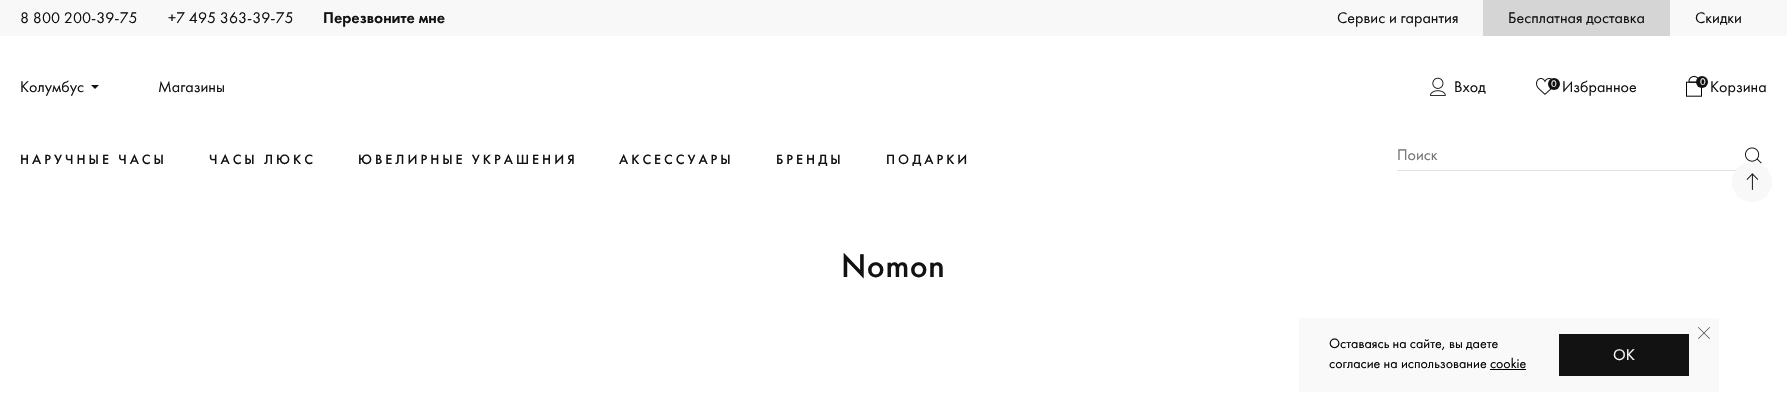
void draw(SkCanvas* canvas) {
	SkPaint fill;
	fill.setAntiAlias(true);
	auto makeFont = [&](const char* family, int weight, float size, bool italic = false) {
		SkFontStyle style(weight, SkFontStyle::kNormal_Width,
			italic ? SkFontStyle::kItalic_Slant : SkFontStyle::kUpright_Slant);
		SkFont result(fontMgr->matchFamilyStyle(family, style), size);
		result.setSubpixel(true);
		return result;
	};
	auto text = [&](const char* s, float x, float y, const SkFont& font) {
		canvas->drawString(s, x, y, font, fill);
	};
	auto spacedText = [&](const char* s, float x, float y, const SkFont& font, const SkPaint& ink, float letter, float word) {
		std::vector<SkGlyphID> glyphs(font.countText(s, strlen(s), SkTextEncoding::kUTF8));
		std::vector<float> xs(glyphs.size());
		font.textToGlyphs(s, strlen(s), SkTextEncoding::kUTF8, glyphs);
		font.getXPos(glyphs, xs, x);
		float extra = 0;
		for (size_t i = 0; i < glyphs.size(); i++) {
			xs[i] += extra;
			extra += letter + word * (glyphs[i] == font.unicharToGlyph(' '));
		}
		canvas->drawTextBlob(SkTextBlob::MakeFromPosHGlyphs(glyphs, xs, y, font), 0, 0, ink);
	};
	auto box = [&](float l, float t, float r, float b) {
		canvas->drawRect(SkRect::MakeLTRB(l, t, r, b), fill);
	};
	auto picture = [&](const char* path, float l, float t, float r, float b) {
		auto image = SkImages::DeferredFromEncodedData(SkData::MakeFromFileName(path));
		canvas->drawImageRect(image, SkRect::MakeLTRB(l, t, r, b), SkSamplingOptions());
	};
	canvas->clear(0xFFFFFFFF);
	fill.setColor(0xFFF8F8F8);
	box(0, 0, 1787, 36);
	fill.setColor(0xFFD5D5D5);
	box(1483, 0, 1670, 36);
	fill.setColor(0xFF121212);
	canvas->drawPath(SkPathBuilder().moveTo(91, 85).lineTo(99, 85).lineTo(95, 89).close().detach(), fill);
	picture("image0.png", 1430, 77, 1446, 96);
	picture("image1.png", 1536, 78, 1552, 95);
	canvas->drawCircle(1554, 84, 6, fill);
	picture("image2.png", 1686, 76, 1702, 97);
	canvas->drawCircle(1702, 82, 6, fill);
	fill.setColor(0xFFE1E1E1);
	box(1397, 170, 1739, 171);
	picture("image3.png", 1745, 147, 1762, 164);
	fill.setColor(0xFFF8F8F8);
	canvas->drawCircle(1752, 182, 20, fill);
	picture("image4.png", 1746, 173, 1759, 190);
	fill.setColor(0xFFF9F9F9);
	box(1299, 318, 1719, 392);
	fill.setColor(0xFF4B4B4B);
	canvas->drawPath(SkPathBuilder().moveTo(1698.5f, 327).lineTo(1710, 338.5f).lineTo(1709.5f, 339).lineTo(1698, 327.5f).close().detach(), fill);
	canvas->drawPath(SkPathBuilder().moveTo(1698, 338.5f).lineTo(1709.5f, 327).lineTo(1710, 327.5f).lineTo(1698.5f, 339).close().detach(), fill);
	fill.setColor(0xFF000000);
	box(1490, 369, 1526, 370);
	fill.setColor(0xFF121212);
	box(1559, 334, 1689, 376);
	auto font1 = makeFont("Futura PT", 400, 16);
	text("8 800 200-39-75", 20, 23, font1);
	text("+7 495 363-39-75", 168, 23, font1);
	auto font2 = makeFont("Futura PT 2", 500, 16);
	text("Перезвоните мне", 323, 23, font2);
	text("Сервис и гарантия", 1337, 23, font1);
	text("Бесплатная доставка", 1508, 23, font1);
	text("Скидки", 1695, 23, font1);
	text("Колумбус", 20, 92, font1);
	text("Магазины", 158, 92, font1);
	text("Вход", 1454, 92, font1);
	auto font3 = makeFont("Futura PT", 400, 10);
	fill.setColor(0xFFFFFFFF);
	text("0", 1551, 87, font3);
	fill.setColor(0xFF121212);
	text("Избранное", 1562, 92, font1);
	fill.setColor(0xFFFFFFFF);
	text("0", 1700, 85, font3);
	fill.setColor(0xFF121212);
	text("Корзина", 1710, 92, font1);
	auto font4 = makeFont("Futura PT", 500, 14);
	spacedText("НАРУЧНЫЕ ЧАСЫ", 20, 164, font4, fill, 3, 0);
	spacedText("ЧАСЫ ЛЮКС", 209, 164, font4, fill, 3, 0);
	spacedText("ЮВЕЛИРНЫЕ УКРАШЕНИЯ", 358, 164, font4, fill, 3, 0);
	spacedText("АКСЕССУАРЫ", 619, 164, font4, fill, 3, 0);
	spacedText("БРЕНДЫ", 776, 164, font4, fill, 3, 0);
	spacedText("ПОДАРКИ", 886, 164, font4, fill, 3, 0);
	fill.setColor(0xFF757575);
	text("Поиск", 1397, 160, font1);
	auto font5 = makeFont("Futura PT", 500, 34);
	fill.setColor(0xFF121212);
	spacedText("Nomon", 841, 277, font5, fill, 0.5f, 0);
	auto font6 = makeFont("Futura PT", 400, 14);
	fill.setColor(0xFF000000);
	text("Оставаясь на сайте, вы даете", 1329, 348, font6);
	text("согласие на использование cookie", 1329, 368, font6);
	fill.setColor(0xFFFFFFFF);
	text("OK", 1613, 360, font1);
}
